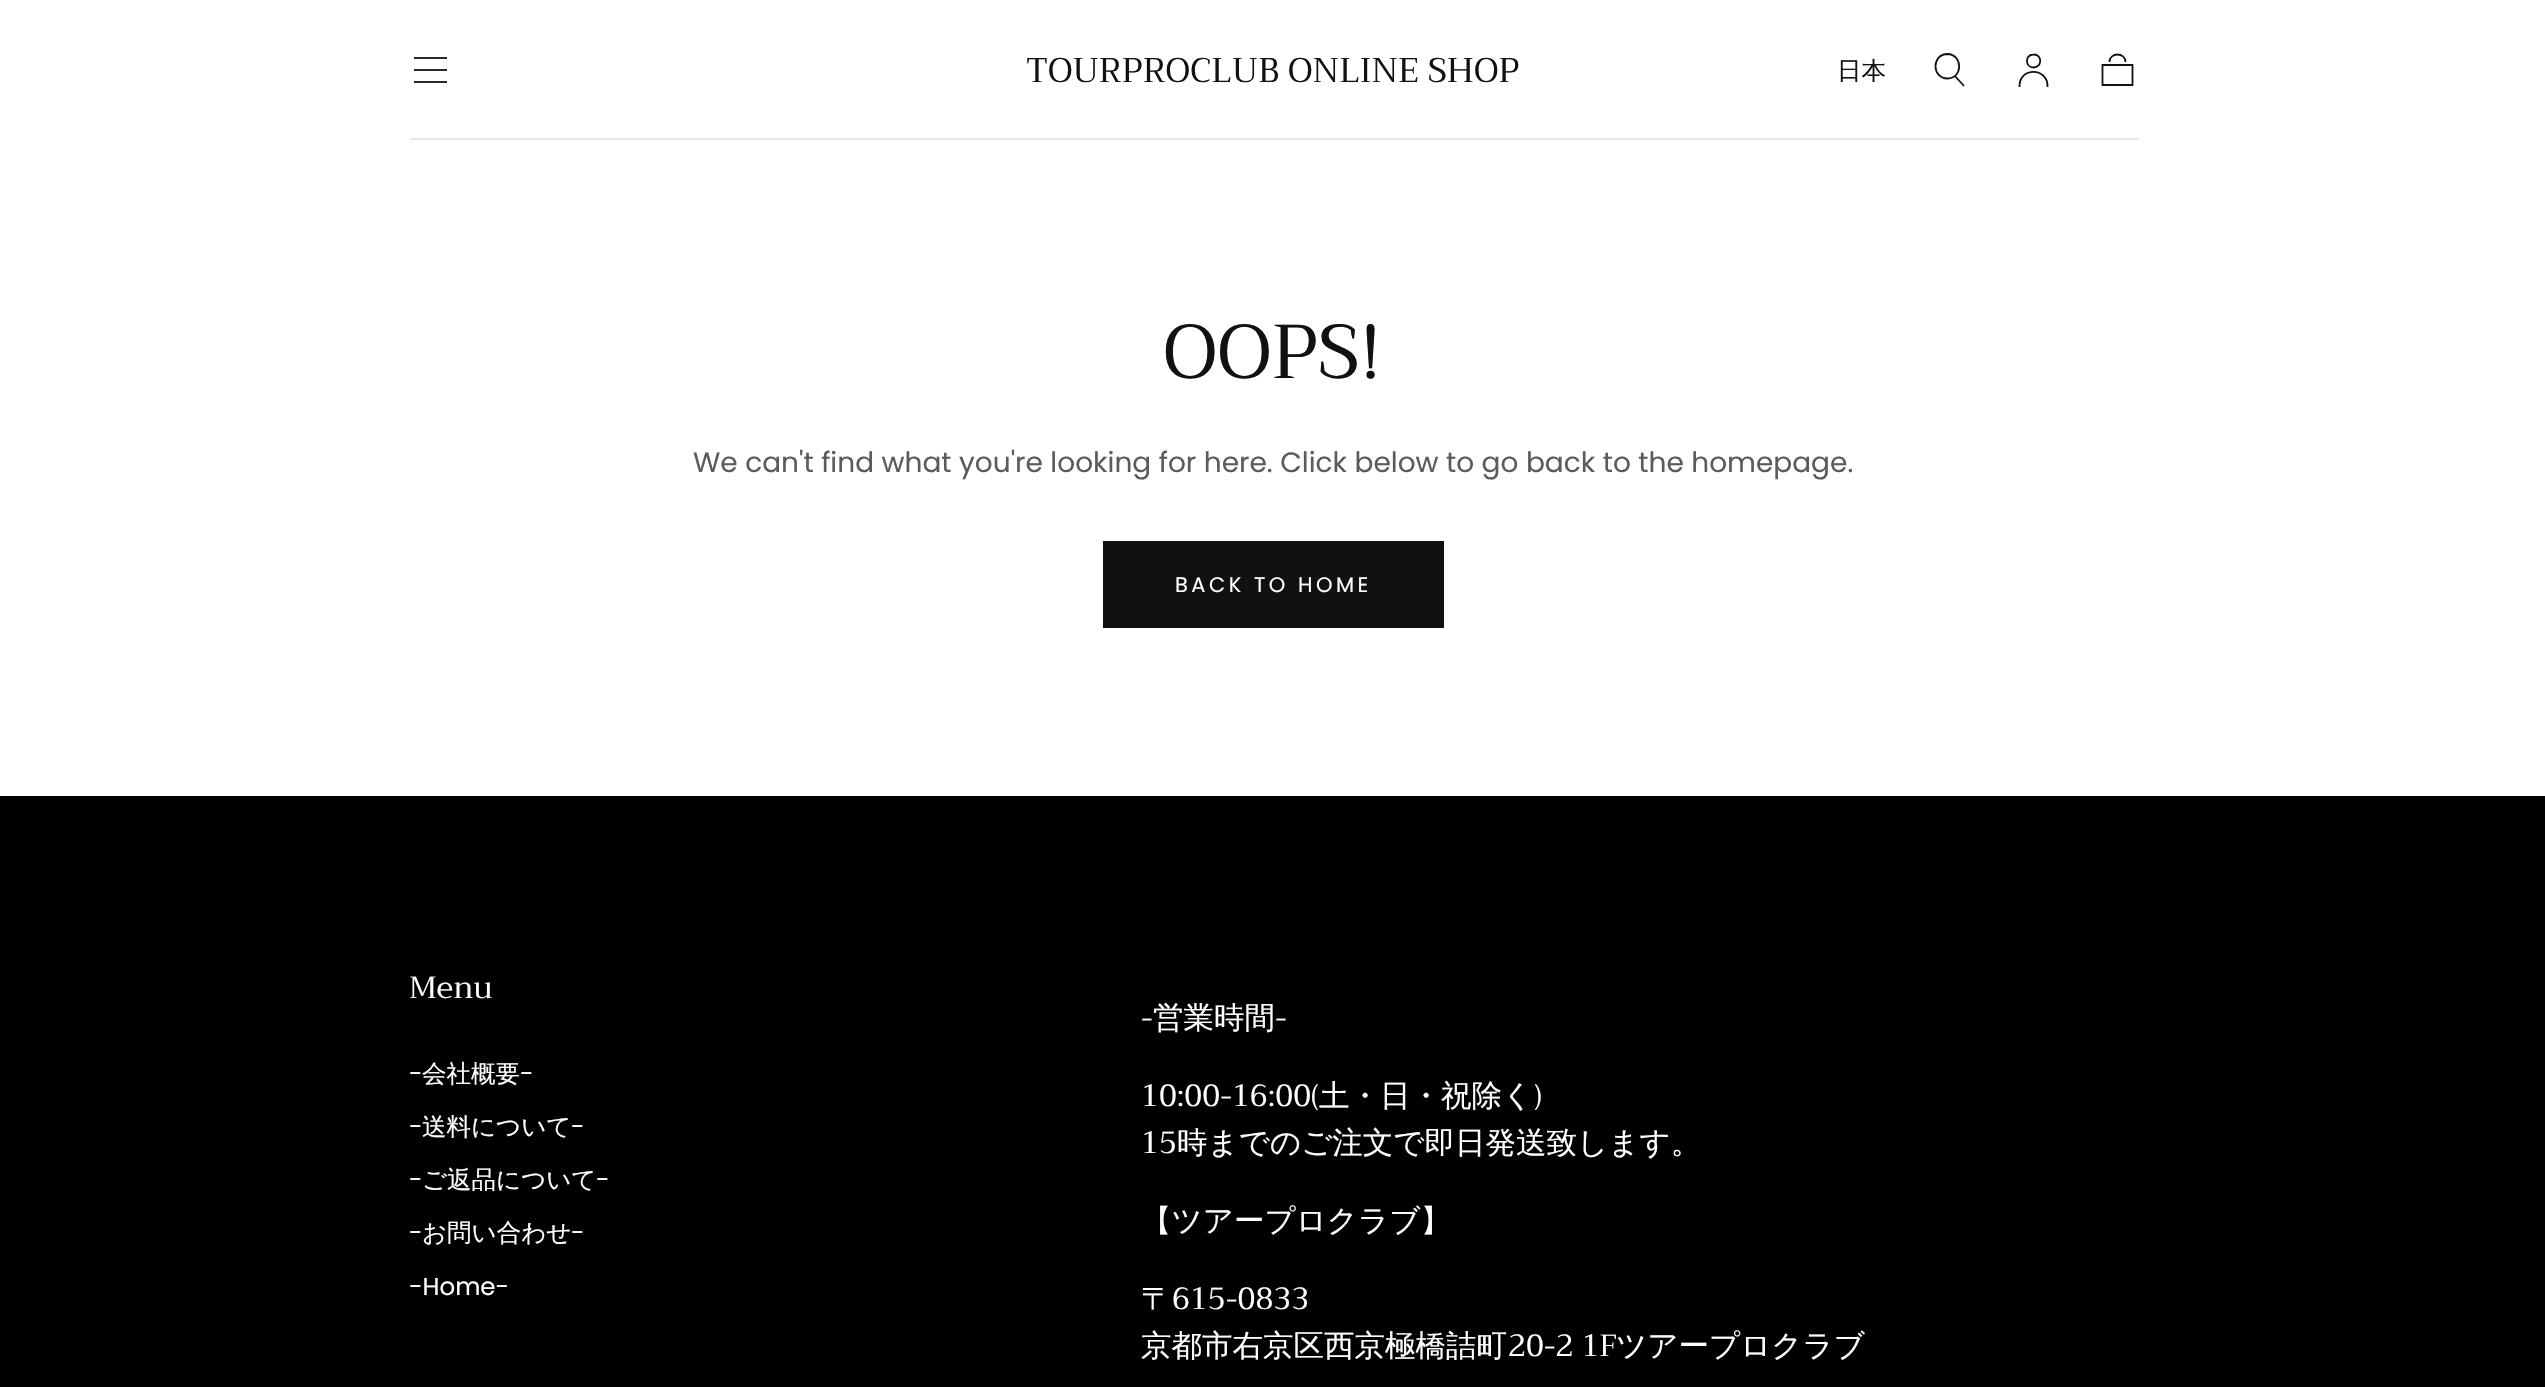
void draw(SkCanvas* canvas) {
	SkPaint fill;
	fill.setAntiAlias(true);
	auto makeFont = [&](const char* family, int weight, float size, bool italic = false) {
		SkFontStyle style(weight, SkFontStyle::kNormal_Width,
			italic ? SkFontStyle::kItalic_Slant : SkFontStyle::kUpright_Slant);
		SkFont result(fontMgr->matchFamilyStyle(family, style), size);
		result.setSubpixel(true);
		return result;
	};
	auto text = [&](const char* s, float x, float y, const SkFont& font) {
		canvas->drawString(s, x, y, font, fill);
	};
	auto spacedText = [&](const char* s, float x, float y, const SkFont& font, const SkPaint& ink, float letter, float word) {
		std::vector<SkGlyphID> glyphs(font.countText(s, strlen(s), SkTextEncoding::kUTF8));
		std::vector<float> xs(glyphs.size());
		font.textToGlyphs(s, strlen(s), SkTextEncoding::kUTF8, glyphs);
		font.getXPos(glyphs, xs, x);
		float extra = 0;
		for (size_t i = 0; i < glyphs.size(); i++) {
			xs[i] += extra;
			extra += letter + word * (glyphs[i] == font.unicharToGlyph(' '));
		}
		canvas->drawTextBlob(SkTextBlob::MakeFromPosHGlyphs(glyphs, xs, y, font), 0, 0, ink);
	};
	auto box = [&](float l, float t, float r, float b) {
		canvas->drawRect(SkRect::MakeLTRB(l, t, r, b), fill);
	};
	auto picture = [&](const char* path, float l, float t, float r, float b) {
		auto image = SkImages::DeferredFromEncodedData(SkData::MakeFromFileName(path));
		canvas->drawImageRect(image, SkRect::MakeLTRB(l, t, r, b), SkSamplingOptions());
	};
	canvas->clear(0xFFFFFFFF);
	picture("image0.png", 414, 57, 447, 83);
	fill.setStyle(SkPaint::kStroke_Style);
	fill.setStrokeWidth(1.8f);
	fill.setColor(0xFF111111);
	canvas->drawPath(SkPathBuilder().moveTo(1954.5f, 75.5f).lineTo(1964, 86).moveTo(1947.5f, 78.5f).cubicTo(1963, 78.5f, 1963, 54.5f, 1947.5f, 54).cubicTo(1931.5f, 54, 1931.5f, 78.5f, 1947.5f, 78.5f).close().detach(), fill);
	fill.setStrokeCap(SkPaint::kSquare_Cap);
	canvas->drawPath(SkPathBuilder().moveTo(2019.5f, 86).cubicTo(2019.5f, 67, 2047.5f, 67.5f, 2047.5f, 86).moveTo(2033.5f, 67.5f).cubicTo(2042.5f, 67.5f, 2042.5f, 54, 2033.5f, 54.5f).cubicTo(2024.5f, 54.5f, 2025, 67.5f, 2033.5f, 67.5f).close().detach(), fill);
	fill.setStrokeCap(SkPaint::kButt_Cap);
	canvas->drawPath(SkPathBuilder().moveTo(2132.5f, 85).lineTo(2102.5f, 85).lineTo(2102.5f, 65).lineTo(2132.5f, 65).close().moveTo(2125.5f, 62).cubicTo(2125.5f, 52, 2109.5f, 52, 2109.5f, 62).detach(), fill);
	fill.setStyle(SkPaint::kFill_Style);
	fill.setColor(0xFFE7E7E7);
	box(410, 138, 2139, 140);
	fill.setColor(0xFF111111);
	box(1103, 541, 1444, 628);
	fill.setColor(0xFF000000);
	box(0, 796, 2545, 1387);
	auto font1 = makeFont("Trirong", 400, 34.3f);
	fill.setColor(0xFF111111);
	text("TOURPROCLUB ONLINE SHOP", 1026, 82, font1);
	auto font2 = makeFont("WenQuanYi Zen Hei", 500, 24.5f);
	text("日本", 1837, 79, font2);
	auto font3 = makeFont("Trirong", 400, 76);
	text("OOPS!", 1163, 378, font3);
	auto font4 = makeFont("Poppins", 400, 28);
	fill.setColor(0xFF5E5A59);
	text("We can't find what you're looking for here. Click below to go back to the homepage.", 693, 472, font4);
	auto font5 = makeFont("Poppins", 400, 21);
	fill.setColor(0xFFFFFFFF);
	spacedText("BACK TO HOME", 1175, 592, font5, fill, 3.5f, 0);
	auto font6 = makeFont("Trirong", 400, 30.5f);
	text("Menu", 409, 998, font6);
	auto font7 = makeFont("Poppins", 400, 24.5f);
	text("-", 409, 1082, font7);
	text("会社概要", 422, 1082, font2);
	text("-", 520, 1082, font7);
	text("-", 409, 1135, font7);
	text("送料について", 422, 1135, font2);
	text("-", 571, 1135, font7);
	text("-", 409, 1188, font7);
	text("ご返品について", 422, 1188, font2);
	text("-", 596, 1188, font7);
	text("-", 409, 1241, font7);
	text("お問い合わせ", 422, 1241, font2);
	text("-", 571, 1241, font7);
	text("-Home-", 409, 1295, font7);
	text("-", 1141, 1028, font6);
	auto font8 = makeFont("WenQuanYi Zen Hei", 500, 30.5f);
	text("営業時間", 1153, 1028, font8);
	text("-", 1275, 1028, font6);
	text("10:00-16:00(", 1141, 1106, font6);
	text("土・日・祝除く", 1319, 1106, font8);
	text(")", 1534, 1106, font6);
	text("15", 1141, 1153, font6);
	text("時までのご注文で即日発送致します。", 1177, 1153, font8);
	text("【ツアープロクラブ】", 1141, 1231, font8);
	text("〒", 1141, 1309, font8);
	text("615-0833", 1172, 1309, font6);
	text("京都市右京区西京極橋詰町", 1141, 1356, font8);
	text("20-2 1F", 1508, 1356, font6);
	text("ツアープロクラブ", 1616, 1356, font8);
}
